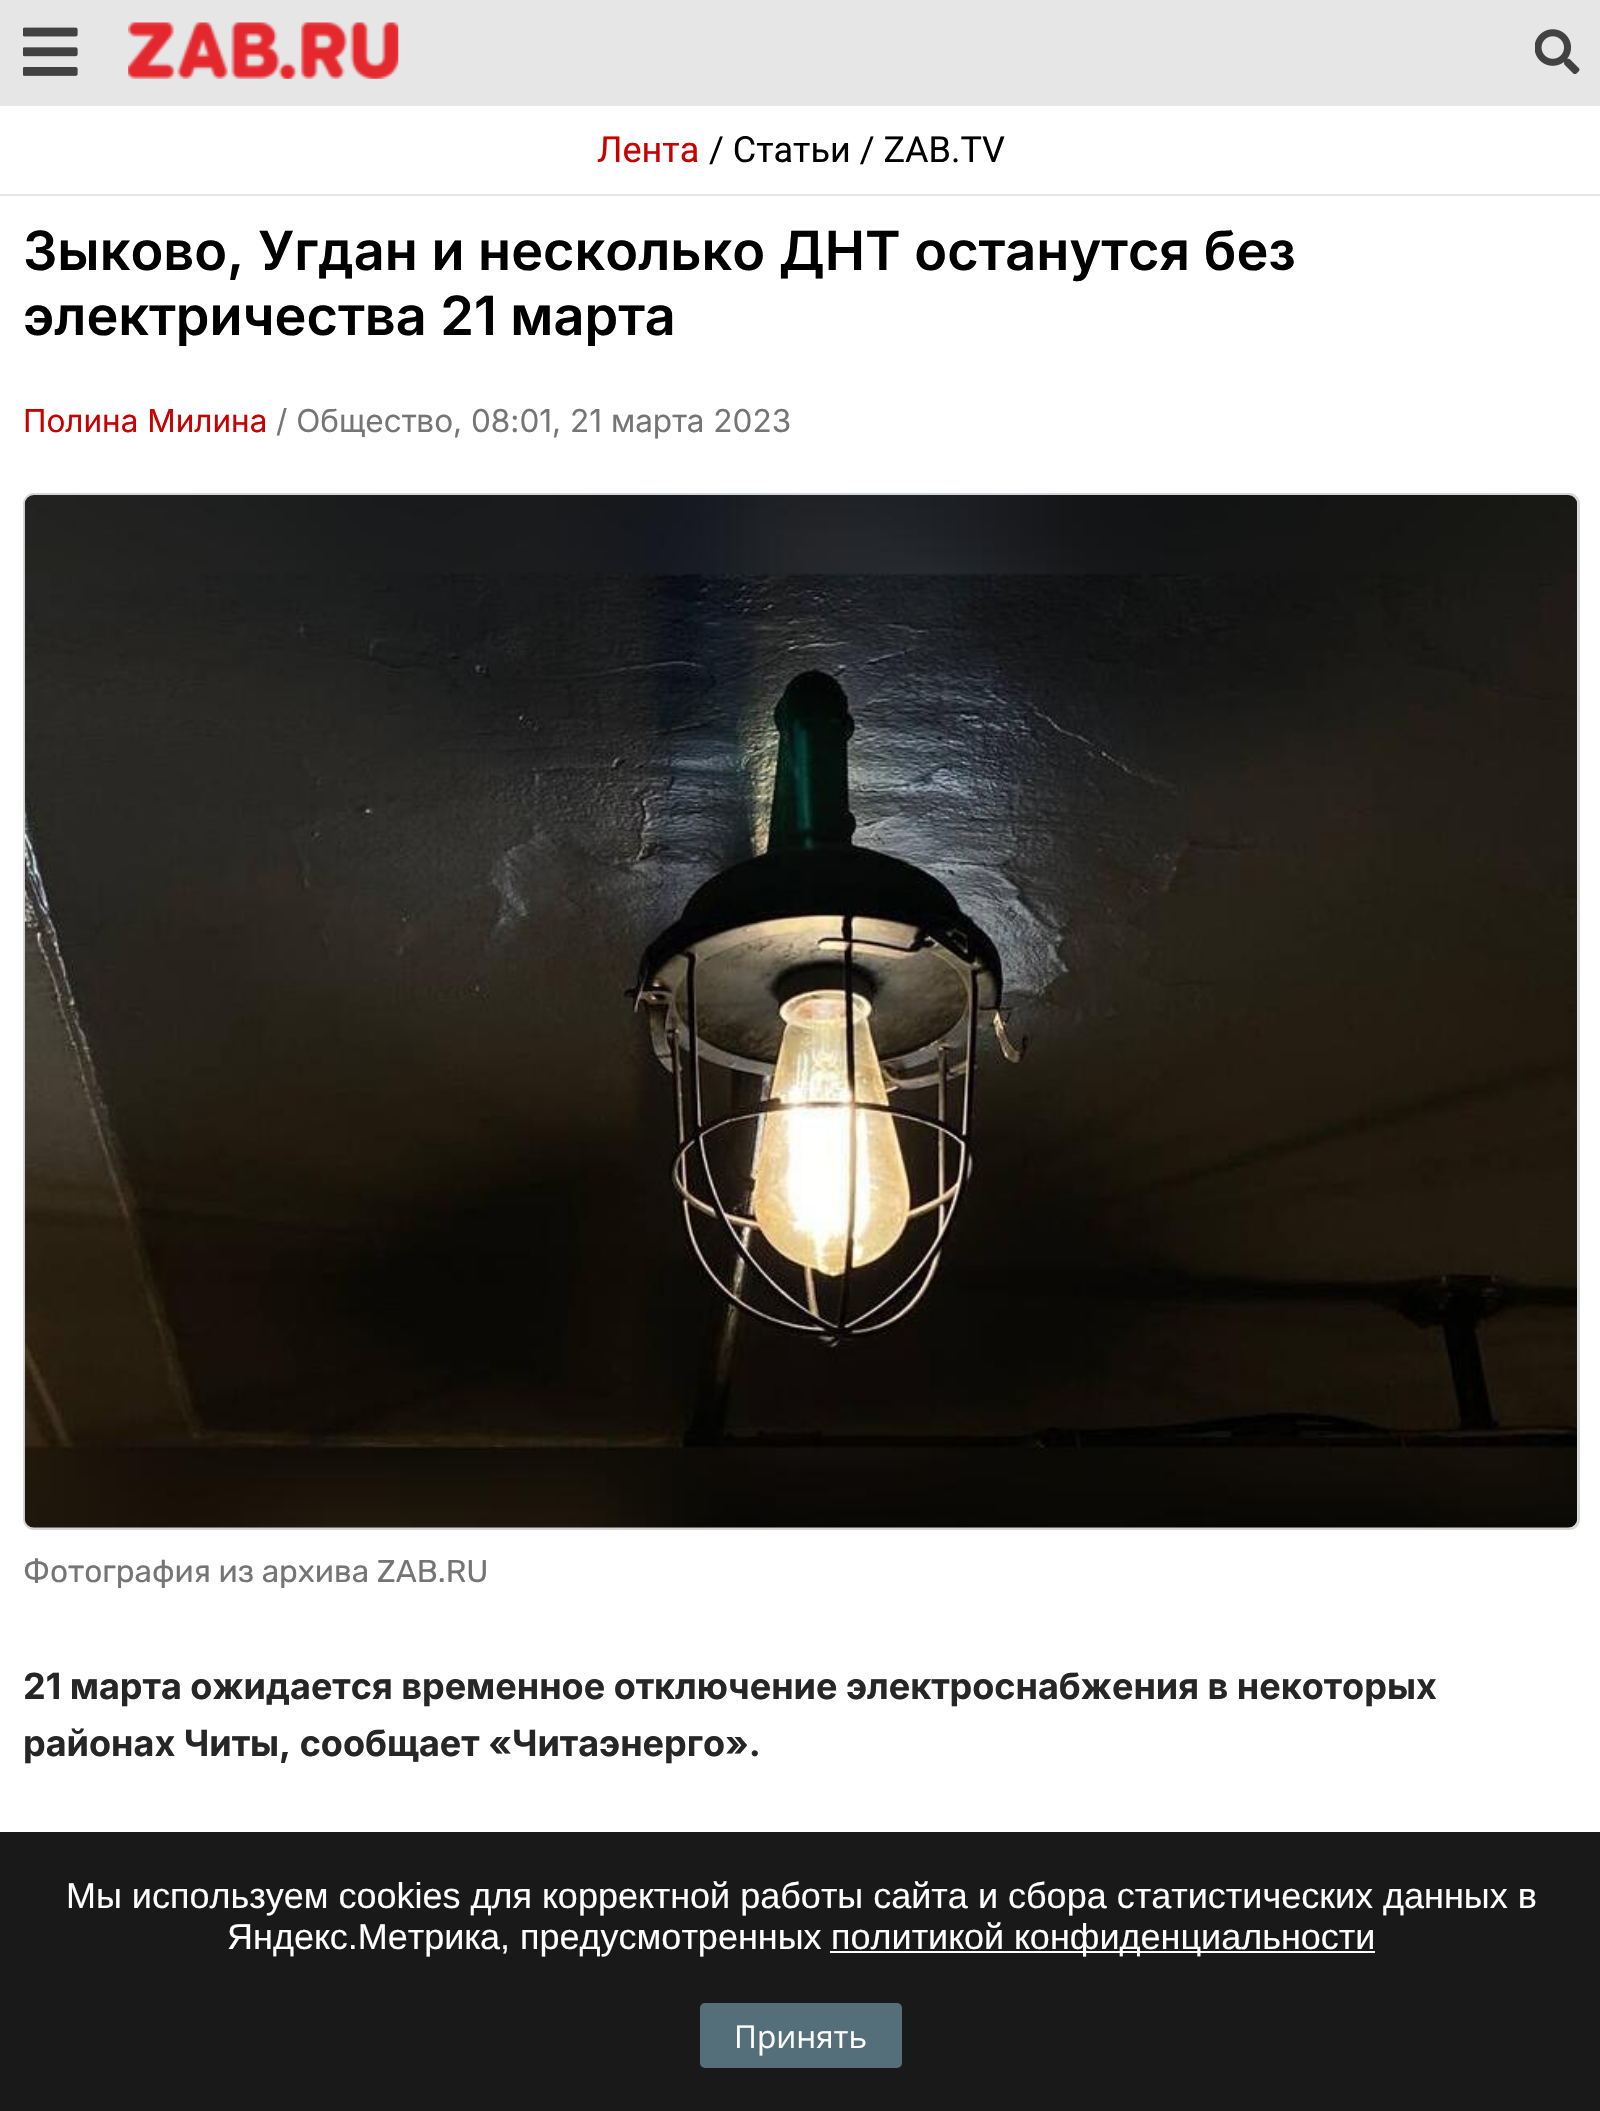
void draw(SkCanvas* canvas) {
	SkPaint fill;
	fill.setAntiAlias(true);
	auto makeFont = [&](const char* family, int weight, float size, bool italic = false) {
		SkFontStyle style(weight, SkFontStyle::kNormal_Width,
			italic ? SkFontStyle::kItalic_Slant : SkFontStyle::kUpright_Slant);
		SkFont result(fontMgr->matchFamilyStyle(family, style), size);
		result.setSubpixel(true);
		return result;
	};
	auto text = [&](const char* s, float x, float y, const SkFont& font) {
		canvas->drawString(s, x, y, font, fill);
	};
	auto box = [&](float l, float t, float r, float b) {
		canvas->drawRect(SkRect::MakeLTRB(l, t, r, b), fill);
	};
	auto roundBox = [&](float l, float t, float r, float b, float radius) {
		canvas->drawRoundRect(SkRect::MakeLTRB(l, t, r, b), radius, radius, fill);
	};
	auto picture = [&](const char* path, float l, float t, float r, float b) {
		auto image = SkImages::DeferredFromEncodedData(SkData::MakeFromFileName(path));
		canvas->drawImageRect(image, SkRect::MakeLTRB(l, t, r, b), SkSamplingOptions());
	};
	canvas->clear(0xFFE6E6E6);
	picture("image0.png", 23, 27, 78, 76);
	picture("image1.png", 128, 22, 399, 79);
	picture("image2.png", 1535, 29, 1580, 74);
	fill.setColor(0xFFFFFFFF);
	box(0, 106, 1600, 194);
	box(0, 196, 1600, 2111);
	fill.setColor(0xFFECEFF1);
	roundBox(23, 493, 1580, 1530, 11);
	fill.setStyle(SkPaint::kStroke_Style);
	fill.setStrokeWidth(2);
	fill.setColor(0x1A000000);
	canvas->drawRoundRect(SkRect::MakeLTRB(24, 494, 1579, 1529), 10, 10, fill);
	picture("image3.png", 24, 495, 1578, 1528);
	fill.setStyle(SkPaint::kFill_Style);
	fill.setColor(0xE6000000);
	box(0, 1832, 1600, 2111);
	fill.setColor(0xFFFFFFFF);
	box(830, 1951, 1375, 1953);
	fill.setColor(0xFF546E7A);
	roundBox(700, 2003, 902, 2068, 5);
	auto font1 = makeFont("Roboto", 400, 36);
	fill.setColor(0xFFC80000);
	text("Лента", 597, 162, font1);
	fill.setColor(0xFF000000);
	text("/ Статьи / ZAB.TV", 709, 162, font1);
	auto font2 = makeFont("Inter", 600, 54);
	text("Зыково, Угдан и несколько ДНТ останутся без", 23, 270, font2);
	text("электричества 21 марта", 23, 335, font2);
	auto font3 = makeFont("Inter", 400, 31.5f);
	fill.setColor(0xFFC80000);
	text("Полина Милина", 23, 432, font3);
	fill.setColor(0xFF757575);
	text("/ Общество, 08:01, 21 марта 2023", 276, 432, font3);
	auto font4 = makeFont("Rubik", 400, 31.5f);
	text("Фотография из архива ZAB.RU", 23, 1582, font4);
	auto font5 = makeFont("Inter", 700, 36);
	fill.setColor(0xFF262626);
	text("21 марта ожидается временное отключение электроснабжения в некоторых", 23, 1699, font5);
	text("районах Читы, сообщает «Читаэнерго».", 23, 1756, font5);
	auto font6 = makeFont("Liberation Sans", 400, 36);
	fill.setColor(0xFFFFFFFF);
	text("Мы используем cookies для корректной работы сайта и сбора статистических данных в", 66, 1908, font6);
	text("Яндекс.Метрика, предусмотренных", 227, 1949, font6);
	text("политикой конфиденциальности", 831, 1949, font6);
	auto font7 = makeFont("Open Sans", 400, 31.5f);
	text("Принять", 734, 2048, font7);
}
